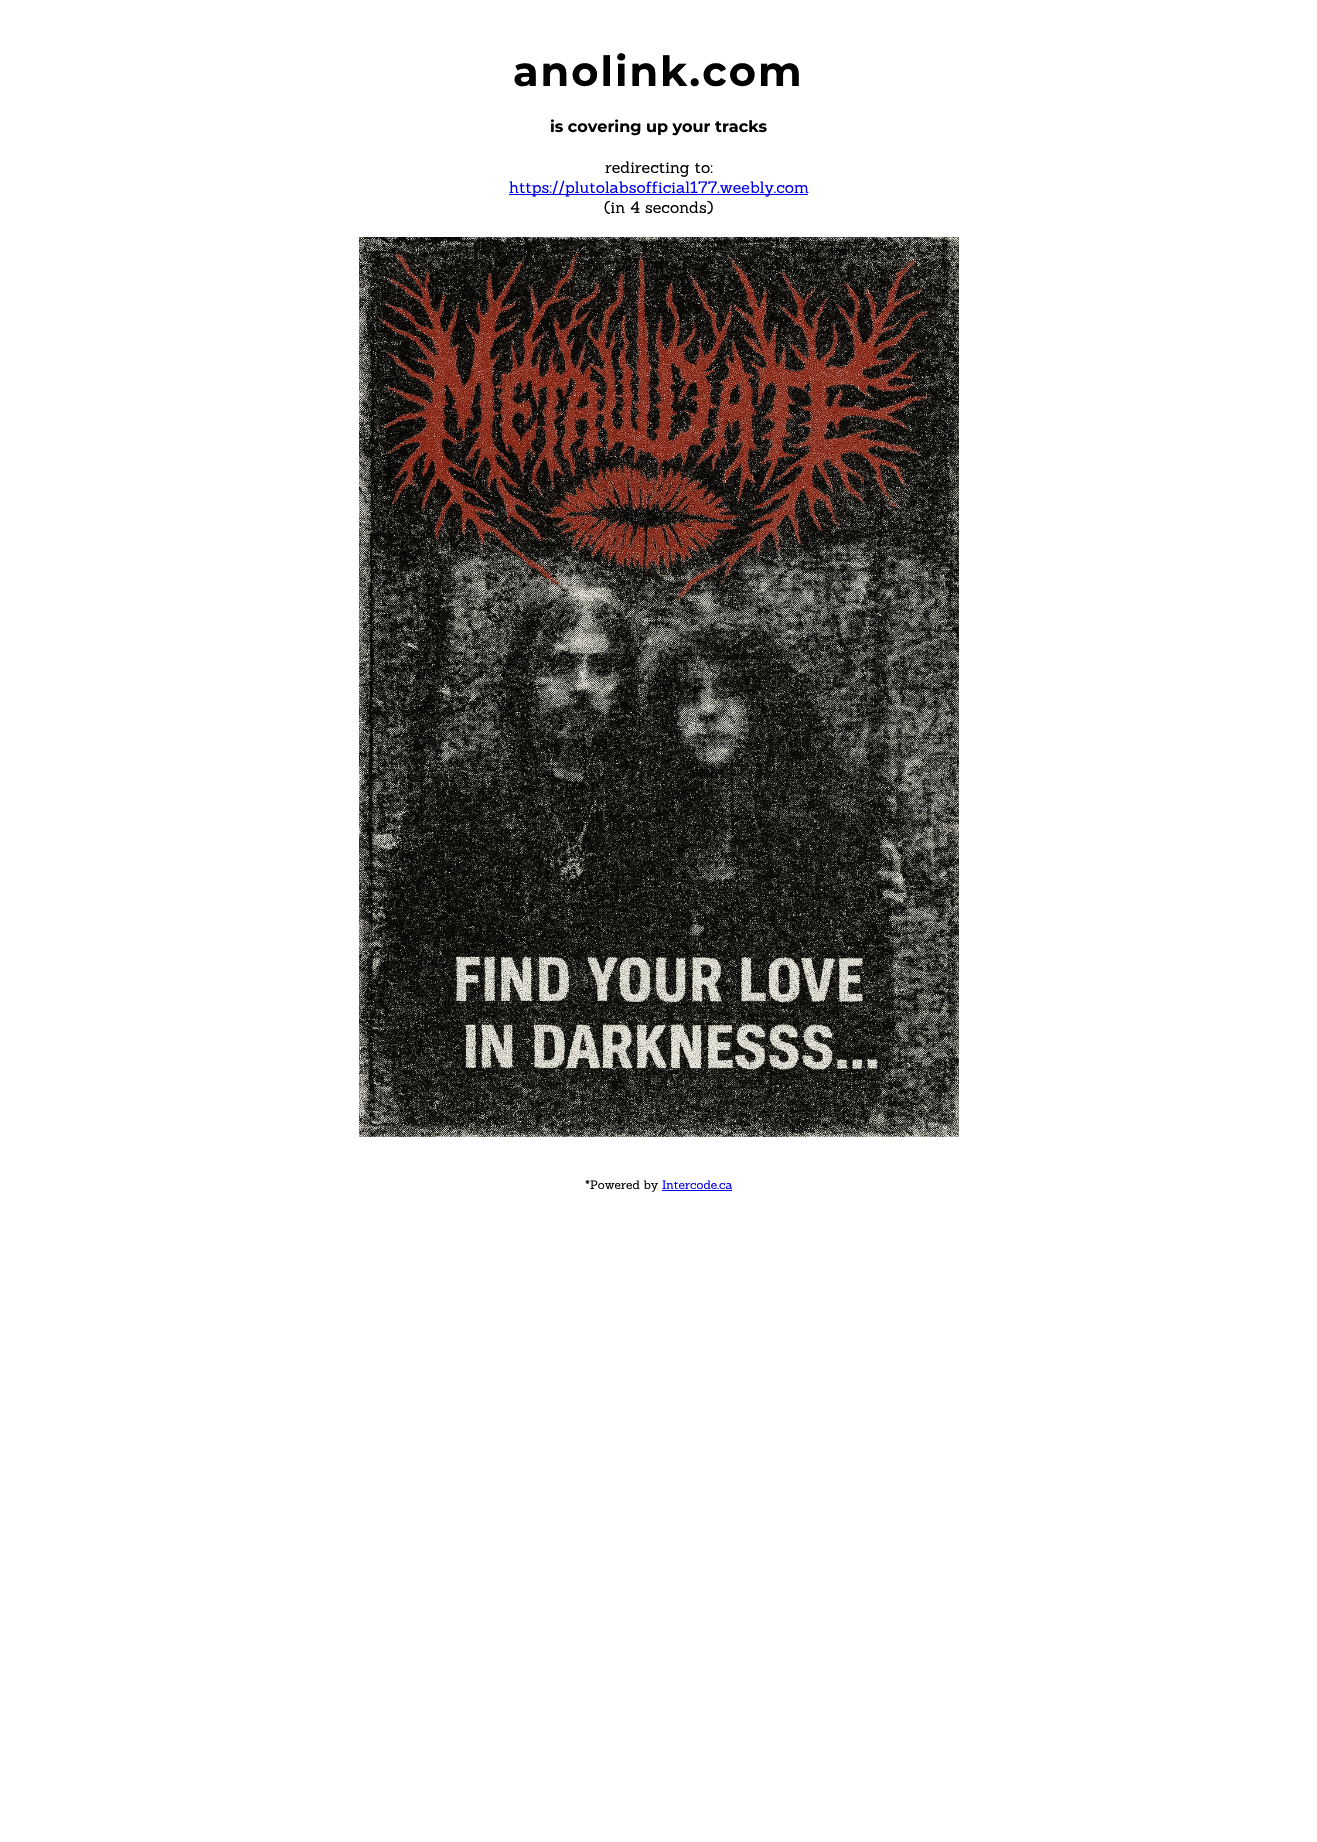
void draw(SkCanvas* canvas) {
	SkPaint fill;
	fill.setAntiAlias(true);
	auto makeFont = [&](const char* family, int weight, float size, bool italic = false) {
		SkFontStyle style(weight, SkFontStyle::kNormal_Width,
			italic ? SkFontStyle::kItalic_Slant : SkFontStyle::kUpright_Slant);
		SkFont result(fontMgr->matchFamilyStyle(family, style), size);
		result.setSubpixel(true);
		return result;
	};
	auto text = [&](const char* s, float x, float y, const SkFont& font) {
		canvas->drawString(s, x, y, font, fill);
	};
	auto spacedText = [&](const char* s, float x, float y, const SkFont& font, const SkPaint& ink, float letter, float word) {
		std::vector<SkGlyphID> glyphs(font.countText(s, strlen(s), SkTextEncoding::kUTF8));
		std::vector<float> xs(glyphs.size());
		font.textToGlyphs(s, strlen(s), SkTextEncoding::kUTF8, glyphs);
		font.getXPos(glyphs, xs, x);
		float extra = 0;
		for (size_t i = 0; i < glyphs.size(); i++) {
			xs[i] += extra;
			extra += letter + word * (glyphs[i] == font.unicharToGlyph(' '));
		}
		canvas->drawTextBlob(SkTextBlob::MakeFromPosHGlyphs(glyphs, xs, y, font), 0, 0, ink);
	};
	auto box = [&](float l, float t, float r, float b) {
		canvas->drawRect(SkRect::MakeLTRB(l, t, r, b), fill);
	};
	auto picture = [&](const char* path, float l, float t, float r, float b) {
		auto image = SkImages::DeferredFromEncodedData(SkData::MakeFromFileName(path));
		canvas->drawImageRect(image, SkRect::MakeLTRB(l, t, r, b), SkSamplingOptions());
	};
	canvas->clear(0xFFFFFFFF);
	fill.setColor(0xFF0000EE);
	box(509, 194, 808, 195);
	picture("image0.png", 359, 237, 959, 1137);
	box(662, 1190, 732, 1191);
	auto font1 = makeFont("Montserrat", 100, 41.5f);
	fill.setColor(0xFF000000);
	spacedText("anolink.com", 513, 86, font1, fill, 2, 0);
	auto font2 = makeFont("Montserrat", 100, 16);
	text("is covering up your tracks", 550, 132, font2);
	auto font3 = makeFont("Sanchez", 400, 16);
	text("redirecting to:", 605, 173, font3);
	fill.setColor(0xFF0000EE);
	text("https://plutolabsofficial177.weebly.com", 509, 193, font3);
	fill.setColor(0xFF000000);
	text("(in 4 seconds)", 604, 213, font3);
	auto font4 = makeFont("Sanchez", 400, 12);
	text("*Powered by", 585, 1189, font4);
	fill.setColor(0xFF0000EE);
	text("Intercode.ca", 662, 1189, font4);
}
